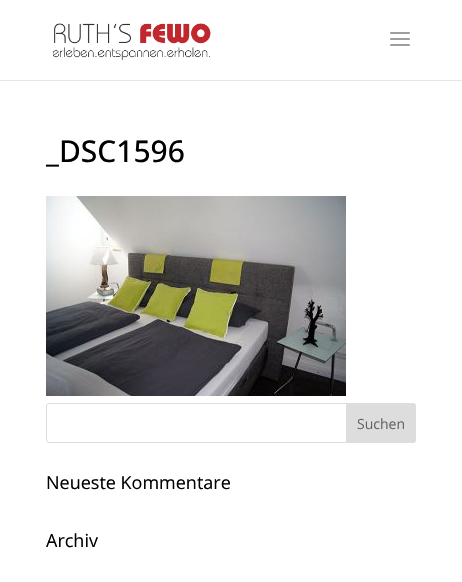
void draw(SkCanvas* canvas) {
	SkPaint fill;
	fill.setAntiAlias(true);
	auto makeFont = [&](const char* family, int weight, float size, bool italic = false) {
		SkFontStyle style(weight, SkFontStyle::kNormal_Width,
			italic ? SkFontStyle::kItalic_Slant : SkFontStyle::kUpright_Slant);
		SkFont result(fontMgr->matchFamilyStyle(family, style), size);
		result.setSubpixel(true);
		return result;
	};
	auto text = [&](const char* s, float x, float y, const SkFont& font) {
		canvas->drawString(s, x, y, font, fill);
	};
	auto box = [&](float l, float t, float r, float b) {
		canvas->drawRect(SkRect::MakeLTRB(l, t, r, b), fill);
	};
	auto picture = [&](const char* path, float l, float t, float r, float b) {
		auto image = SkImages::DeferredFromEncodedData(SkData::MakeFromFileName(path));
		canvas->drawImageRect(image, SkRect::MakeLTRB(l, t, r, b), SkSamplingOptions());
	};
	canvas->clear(0xFFFFFFFF);
	fill.setColor(0xFFE6E6E6);
	box(0, 80, 462, 81);
	picture("image0.png", 53, 23, 211, 60);
	picture("image1.png", 390, 32, 410, 46);
	picture("image2.png", 46, 196, 346, 396);
	fill.setStyle(SkPaint::kStroke_Style);
	fill.setStrokeWidth(1);
	fill.setColor(0xFFDDDDDD);
	canvas->drawRoundRect(SkRect::MakeLTRB(46.5f, 403.5f, 415.5f, 442.5f), 2.5f, 2.5f, fill);
	fill.setStyle(SkPaint::kFill_Style);
	canvas->drawPath(SkPathBuilder().moveTo(346.5f, 403.5f).lineTo(413, 403.5f).cubicTo(414.5f, 403.5f, 415.5f, 404.5f, 415.5f, 406).lineTo(415.5f, 440).cubicTo(415.5f, 441.5f, 414.5f, 442.5f, 413, 442.5f).lineTo(346.5f, 442.5f).close().detach(), fill);
	fill.setStyle(SkPaint::kStroke_Style);
	canvas->drawPath(SkPathBuilder().moveTo(346.5f, 403.5f).lineTo(413, 403.5f).cubicTo(414.5f, 403.5f, 415.5f, 404.5f, 415.5f, 406).lineTo(415.5f, 440).cubicTo(415.5f, 441.5f, 414.5f, 442.5f, 413, 442.5f).lineTo(346.5f, 442.5f).close().detach(), fill);
	auto font1 = makeFont("Open Sans", 500, 30);
	fill.setStyle(SkPaint::kFill_Style);
	fill.setColor(0xFF000000);
	text("_DSC1596", 46, 162, font1);
	auto font2 = makeFont("Open Sans", 400, 14);
	fill.setColor(0xFF666666);
	text("Suchen", 357, 429, font2);
	auto font3 = makeFont("Open Sans", 400, 18);
	fill.setColor(0xFF000000);
	text("Neueste Kommentare", 46, 489, font3);
	text("Archiv", 46, 547, font3);
}
